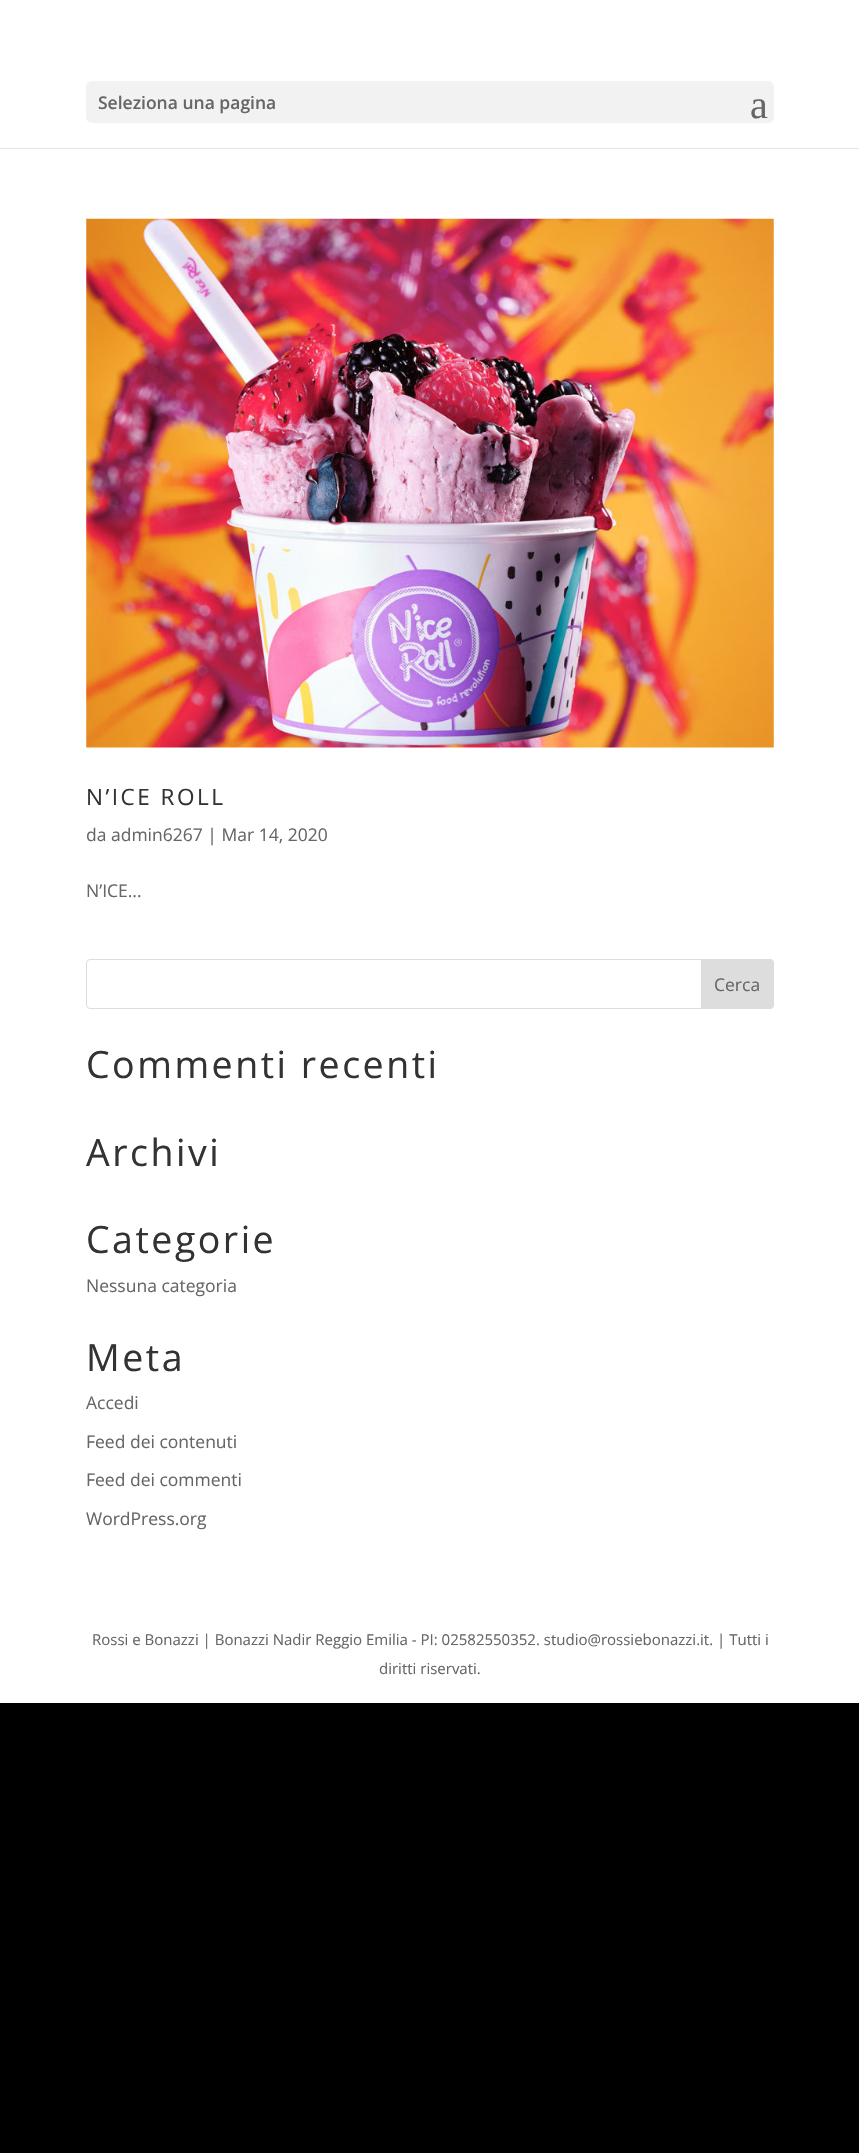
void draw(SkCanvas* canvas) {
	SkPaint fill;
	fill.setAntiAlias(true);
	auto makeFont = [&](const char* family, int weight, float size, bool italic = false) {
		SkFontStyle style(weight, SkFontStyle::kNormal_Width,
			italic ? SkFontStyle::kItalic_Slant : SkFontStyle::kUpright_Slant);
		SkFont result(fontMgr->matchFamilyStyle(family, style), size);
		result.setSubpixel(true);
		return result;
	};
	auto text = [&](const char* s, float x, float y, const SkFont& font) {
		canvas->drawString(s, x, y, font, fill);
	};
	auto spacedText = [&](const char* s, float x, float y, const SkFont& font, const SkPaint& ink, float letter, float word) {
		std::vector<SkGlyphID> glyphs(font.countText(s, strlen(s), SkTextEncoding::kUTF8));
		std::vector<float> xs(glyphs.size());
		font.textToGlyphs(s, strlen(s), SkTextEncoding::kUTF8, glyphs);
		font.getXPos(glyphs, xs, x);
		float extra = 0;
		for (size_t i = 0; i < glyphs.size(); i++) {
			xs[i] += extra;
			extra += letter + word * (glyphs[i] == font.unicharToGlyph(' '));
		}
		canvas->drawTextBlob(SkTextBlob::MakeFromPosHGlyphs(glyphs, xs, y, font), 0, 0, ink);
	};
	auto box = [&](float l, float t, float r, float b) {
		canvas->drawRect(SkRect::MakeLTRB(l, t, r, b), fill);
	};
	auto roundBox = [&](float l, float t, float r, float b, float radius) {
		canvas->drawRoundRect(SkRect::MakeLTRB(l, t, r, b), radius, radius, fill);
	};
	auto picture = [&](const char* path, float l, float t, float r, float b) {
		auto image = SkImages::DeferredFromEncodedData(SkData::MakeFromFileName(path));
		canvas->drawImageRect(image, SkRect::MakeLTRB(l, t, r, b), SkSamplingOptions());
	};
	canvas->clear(0xFF000000);
	fill.setColor(0xFFE6E6E6);
	box(0, 148, 859, 149);
	fill.setColor(0xFFFFFFFF);
	box(0, 0, 859, 148);
	fill.setColor(0xFFF2F2F2);
	roundBox(86, 81, 774, 123, 6);
	fill.setColor(0xFFFFFFFF);
	box(0, 149, 859, 1703);
	picture("image0.png", 86, 218, 774, 748);
	fill.setStyle(SkPaint::kStroke_Style);
	fill.setStrokeWidth(1);
	fill.setColor(0xFFDDDDDD);
	canvas->drawRoundRect(SkRect::MakeLTRB(86.5f, 959.5f, 773.5f, 1008.5f), 3.5f, 3.5f, fill);
	fill.setStyle(SkPaint::kFill_Style);
	canvas->drawPath(SkPathBuilder().moveTo(701.5f, 959.5f).lineTo(770, 959.5f).cubicTo(772, 959.5f, 773.5f, 961, 773.5f, 963).lineTo(773.5f, 1005).cubicTo(773.5f, 1007, 772, 1008.5f, 770, 1008.5f).lineTo(701.5f, 1008.5f).close().detach(), fill);
	fill.setStyle(SkPaint::kStroke_Style);
	canvas->drawPath(SkPathBuilder().moveTo(701.5f, 959.5f).lineTo(770, 959.5f).cubicTo(772, 959.5f, 773.5f, 961, 773.5f, 963).lineTo(773.5f, 1005).cubicTo(773.5f, 1007, 772, 1008.5f, 770, 1008.5f).lineTo(701.5f, 1008.5f).close().detach(), fill);
	auto font1 = makeFont("Open Sans", 600, 17.5f);
	fill.setStyle(SkPaint::kFill_Style);
	fill.setColor(0xFF666666);
	text("Seleziona una pagina", 98, 109, font1);
	auto font2 = makeFont("Liberation Serif", 400, 40);
	text("a", 750, 118, font2);
	auto font3 = makeFont("Open Sans", 400, 22.5f);
	fill.setColor(0xFF333333);
	spacedText("N’ICE ROLL", 86, 805, font3, fill, 2.5f, 0);
	auto font4 = makeFont("Open Sans", 400, 17.5f);
	fill.setColor(0xFF666666);
	text("da admin6267 | Mar 14, 2020", 86, 841, font4);
	text("N’ICE...", 86, 897, font4);
	text("Cerca", 714, 991, font4);
	auto font5 = makeFont("Open Sans", 400, 37.5f);
	fill.setColor(0xFF333333);
	spacedText("Commenti recenti", 86, 1078, font5, fill, 2.5f, 0);
	spacedText("Archivi", 86, 1166, font5, fill, 2.5f, 0);
	spacedText("Categorie", 86, 1253, font5, fill, 2.5f, 0);
	fill.setColor(0xFF666666);
	text("Nessuna categoria", 86, 1292, font4);
	fill.setColor(0xFF333333);
	spacedText("Meta", 86, 1371, font5, fill, 2.5f, 0);
	fill.setColor(0xFF666666);
	text("Accedi", 86, 1409, font4);
	text("Feed dei contenuti", 86, 1448, font4);
	text("Feed dei commenti", 86, 1486, font4);
	text("WordPress.org", 86, 1525, font4);
	auto font6 = makeFont("Open Sans", 400, 15);
	text("Rossi e Bonazzi | Bonazzi Nadir Reggio Emilia - PI: 02582550352. studio@rossiebonazzi.it. | Tutti i", 92, 1645, font6);
	text("diritti riservati.", 379, 1674, font6);
}
